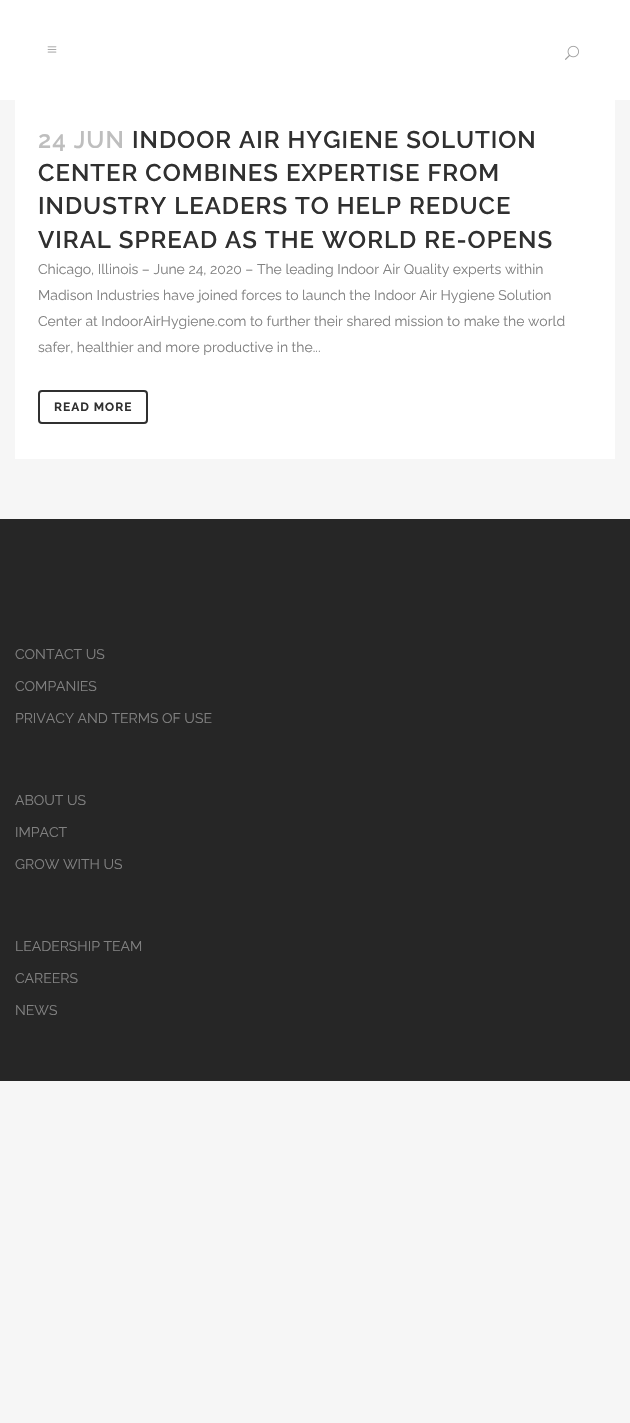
void draw(SkCanvas* canvas) {
	SkPaint fill;
	fill.setAntiAlias(true);
	auto makeFont = [&](const char* family, int weight, float size, bool italic = false) {
		SkFontStyle style(weight, SkFontStyle::kNormal_Width,
			italic ? SkFontStyle::kItalic_Slant : SkFontStyle::kUpright_Slant);
		SkFont result(fontMgr->matchFamilyStyle(family, style), size);
		result.setSubpixel(true);
		return result;
	};
	auto text = [&](const char* s, float x, float y, const SkFont& font) {
		canvas->drawString(s, x, y, font, fill);
	};
	auto spacedText = [&](const char* s, float x, float y, const SkFont& font, const SkPaint& ink, float letter, float word) {
		std::vector<SkGlyphID> glyphs(font.countText(s, strlen(s), SkTextEncoding::kUTF8));
		std::vector<float> xs(glyphs.size());
		font.textToGlyphs(s, strlen(s), SkTextEncoding::kUTF8, glyphs);
		font.getXPos(glyphs, xs, x);
		float extra = 0;
		for (size_t i = 0; i < glyphs.size(); i++) {
			xs[i] += extra;
			extra += letter + word * (glyphs[i] == font.unicharToGlyph(' '));
		}
		canvas->drawTextBlob(SkTextBlob::MakeFromPosHGlyphs(glyphs, xs, y, font), 0, 0, ink);
	};
	auto box = [&](float l, float t, float r, float b) {
		canvas->drawRect(SkRect::MakeLTRB(l, t, r, b), fill);
	};
	auto picture = [&](const char* path, float l, float t, float r, float b) {
		auto image = SkImages::DeferredFromEncodedData(SkData::MakeFromFileName(path));
		canvas->drawImageRect(image, SkRect::MakeLTRB(l, t, r, b), SkSamplingOptions());
	};
	canvas->clear(0xFFF6F6F6);
	fill.setColor(0xFFFFFFFF);
	box(0, 0, 630, 100);
	picture("image0.png", 47, 46, 57, 53);
	picture("image1.png", 565, 45, 579, 60);
	box(15, 100, 615, 459);
	fill.setStyle(SkPaint::kStroke_Style);
	fill.setStrokeWidth(2);
	fill.setColor(0xFF303030);
	canvas->drawRoundRect(SkRect::MakeLTRB(39, 391, 147, 423), 3, 3, fill);
	fill.setStyle(SkPaint::kFill_Style);
	fill.setColor(0xFF262626);
	box(0, 519, 630, 1081);
	auto font1 = makeFont("Raleway", 600, 24);
	fill.setColor(0xFFBEBEBE);
	spacedText("24 JUN", 38, 148, font1, fill, 1, 0);
	fill.setColor(0xFF303030);
	spacedText("INDOOR AIR HYGIENE SOLUTION", 132, 148, font1, fill, 1, 0);
	spacedText("CENTER COMBINES EXPERTISE FROM", 38, 181, font1, fill, 1, 0);
	spacedText("INDUSTRY LEADERS TO HELP REDUCE", 38, 214, font1, fill, 1, 0);
	spacedText("VIRAL SPREAD AS THE WORLD RE-OPENS", 38, 248, font1, fill, 1, 0);
	auto font2 = makeFont("Raleway", 400, 14);
	fill.setColor(0xFF818181);
	text("Chicago, Illinois – June 24, 2020 – The leading Indoor Air Quality experts within", 38, 274, font2);
	text("Madison Industries have joined forces to launch the Indoor Air Hygiene Solution", 38, 300, font2);
	text("Center at IndoorAirHygiene.com to further their shared mission to make the world", 38, 326, font2);
	text("safer, healthier and more productive in the...", 38, 352, font2);
	auto font3 = makeFont("Raleway", 700, 12);
	fill.setColor(0xFF303030);
	spacedText("READ MORE", 54, 411, font3, fill, 1, 0);
	fill.setColor(0xFF818181);
	text("CONTACT US", 15, 659, font2);
	text("COMPANIES", 15, 691, font2);
	text("PRIVACY AND TERMS OF USE", 15, 723, font2);
	text("ABOUT US", 15, 805, font2);
	text("IMPACT", 15, 837, font2);
	text("GROW WITH US", 15, 869, font2);
	text("LEADERSHIP TEAM", 15, 951, font2);
	text("CAREERS", 15, 983, font2);
	text("NEWS", 15, 1015, font2);
}
